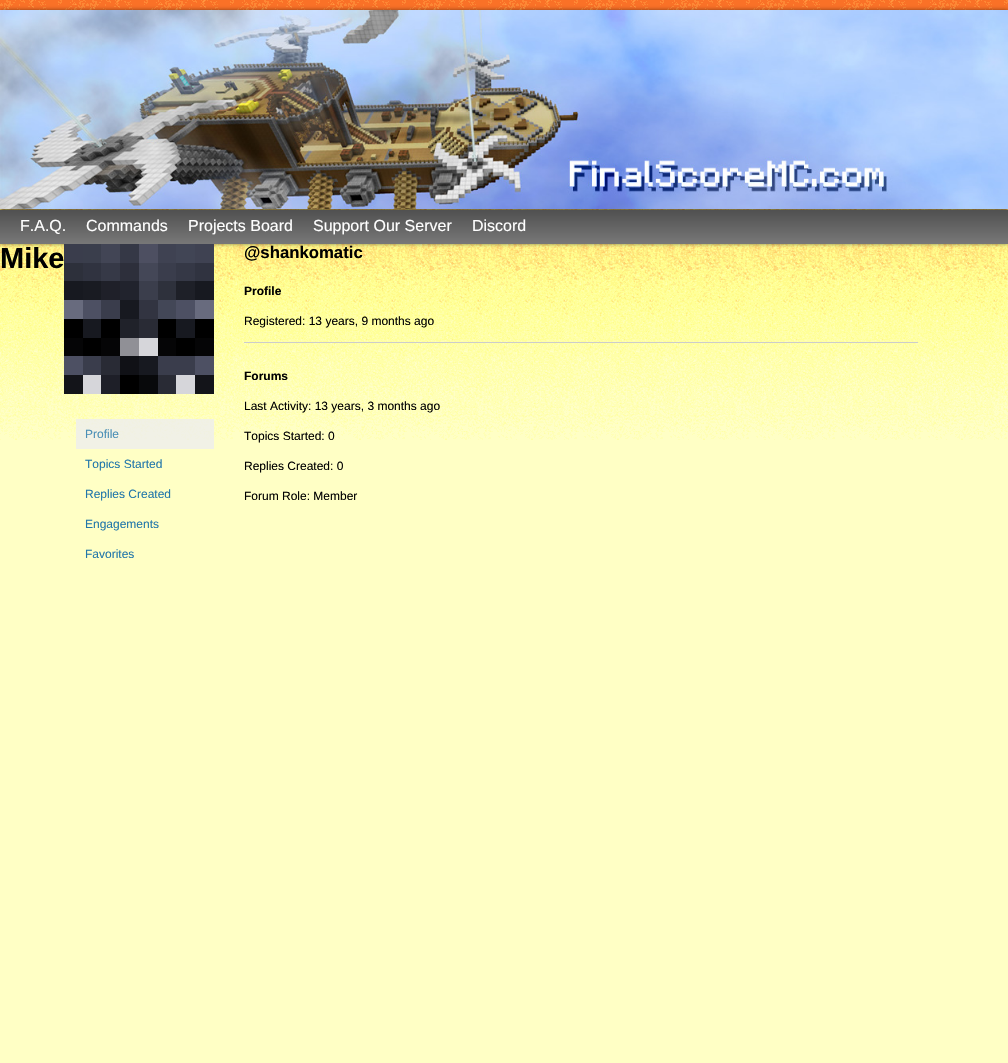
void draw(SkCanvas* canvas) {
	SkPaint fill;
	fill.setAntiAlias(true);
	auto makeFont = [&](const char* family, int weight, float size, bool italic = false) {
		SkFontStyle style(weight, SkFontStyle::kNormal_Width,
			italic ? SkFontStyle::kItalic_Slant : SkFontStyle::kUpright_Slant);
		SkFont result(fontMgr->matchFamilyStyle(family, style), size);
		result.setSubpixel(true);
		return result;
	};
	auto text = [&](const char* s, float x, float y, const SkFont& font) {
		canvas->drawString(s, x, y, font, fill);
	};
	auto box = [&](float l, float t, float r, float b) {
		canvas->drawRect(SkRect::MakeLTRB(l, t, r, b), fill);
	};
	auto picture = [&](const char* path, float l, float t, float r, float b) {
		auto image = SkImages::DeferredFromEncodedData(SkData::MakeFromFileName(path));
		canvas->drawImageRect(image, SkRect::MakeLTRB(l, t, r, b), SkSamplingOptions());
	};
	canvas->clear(0xFFFFFFC5);
	picture("image0.png", 0, 0, 1008, 440);
	fill.setColor(0x80000000);
	fill.setMaskFilter(SkMaskFilter::MakeBlur(kNormal_SkBlurStyle, 2));
	canvas->drawRect(SkRect::MakeLTRB(0, 10, 1008, 244), fill);
	fill.setMaskFilter(nullptr);
	picture("image1.png", 0, 10, 1008, 209);
	{
		const SkColor colors[] = {0xFF505050, 0xFF787878};
		const float stops[] = {0, 1};
		const SkPoint ends[] = {{504, 210}, {504, 244}};
		fill.setShader(SkGradientShader::MakeLinear(ends, colors, stops, 2, SkTileMode::kClamp));
		fill.setAlpha(255);
	}
	box(0, 210, 1008, 244);
	picture("image2.png", 64, 244, 214, 394);
	fill.setShader(nullptr);
	fill.setColor(0xCCEEEEEE);
	box(76, 419, 214, 449);
	fill.setColor(0xFFCCCCCC);
	box(244, 342, 918, 343);
	auto font1 = makeFont("Liberation Sans", 400, 16);
	fill.setColor(0xFFFFFFFF);
	text("F.A.Q.", 20, 231, font1);
	text("Commands", 86, 231, font1);
	text("Projects Board", 188, 231, font1);
	text("Support Our Server", 313, 231, font1);
	text("Discord", 472, 231, font1);
	auto font2 = makeFont("Liberation Sans", 700, 29);
	fill.setColor(0xFF000000);
	text("Mike", 0, 268, font2);
	auto font3 = makeFont("Liberation Sans", 400, 12);
	fill.setColor(0xFF4B8FB6);
	text("Profile", 85, 438, font3);
	fill.setColor(0xFF2277AA);
	text("Topics Started", 85, 468, font3);
	text("Replies Created", 85, 498, font3);
	text("Engagements", 85, 528, font3);
	text("Favorites", 85, 558, font3);
	auto font4 = makeFont("Liberation Sans", 700, 16.75f);
	fill.setColor(0xFF000000);
	text("@shankomatic", 244, 258, font4);
	auto font5 = makeFont("Liberation Sans", 700, 12);
	text("Profile", 244, 295, font5);
	text("Registered: 13 years, 9 months ago", 244, 325, font3);
	text("Forums", 244, 380, font5);
	text("Last Activity: 13 years, 3 months ago", 244, 410, font3);
	text("Topics Started: 0", 244, 440, font3);
	text("Replies Created: 0", 244, 470, font3);
	text("Forum Role: Member", 244, 500, font3);
}
